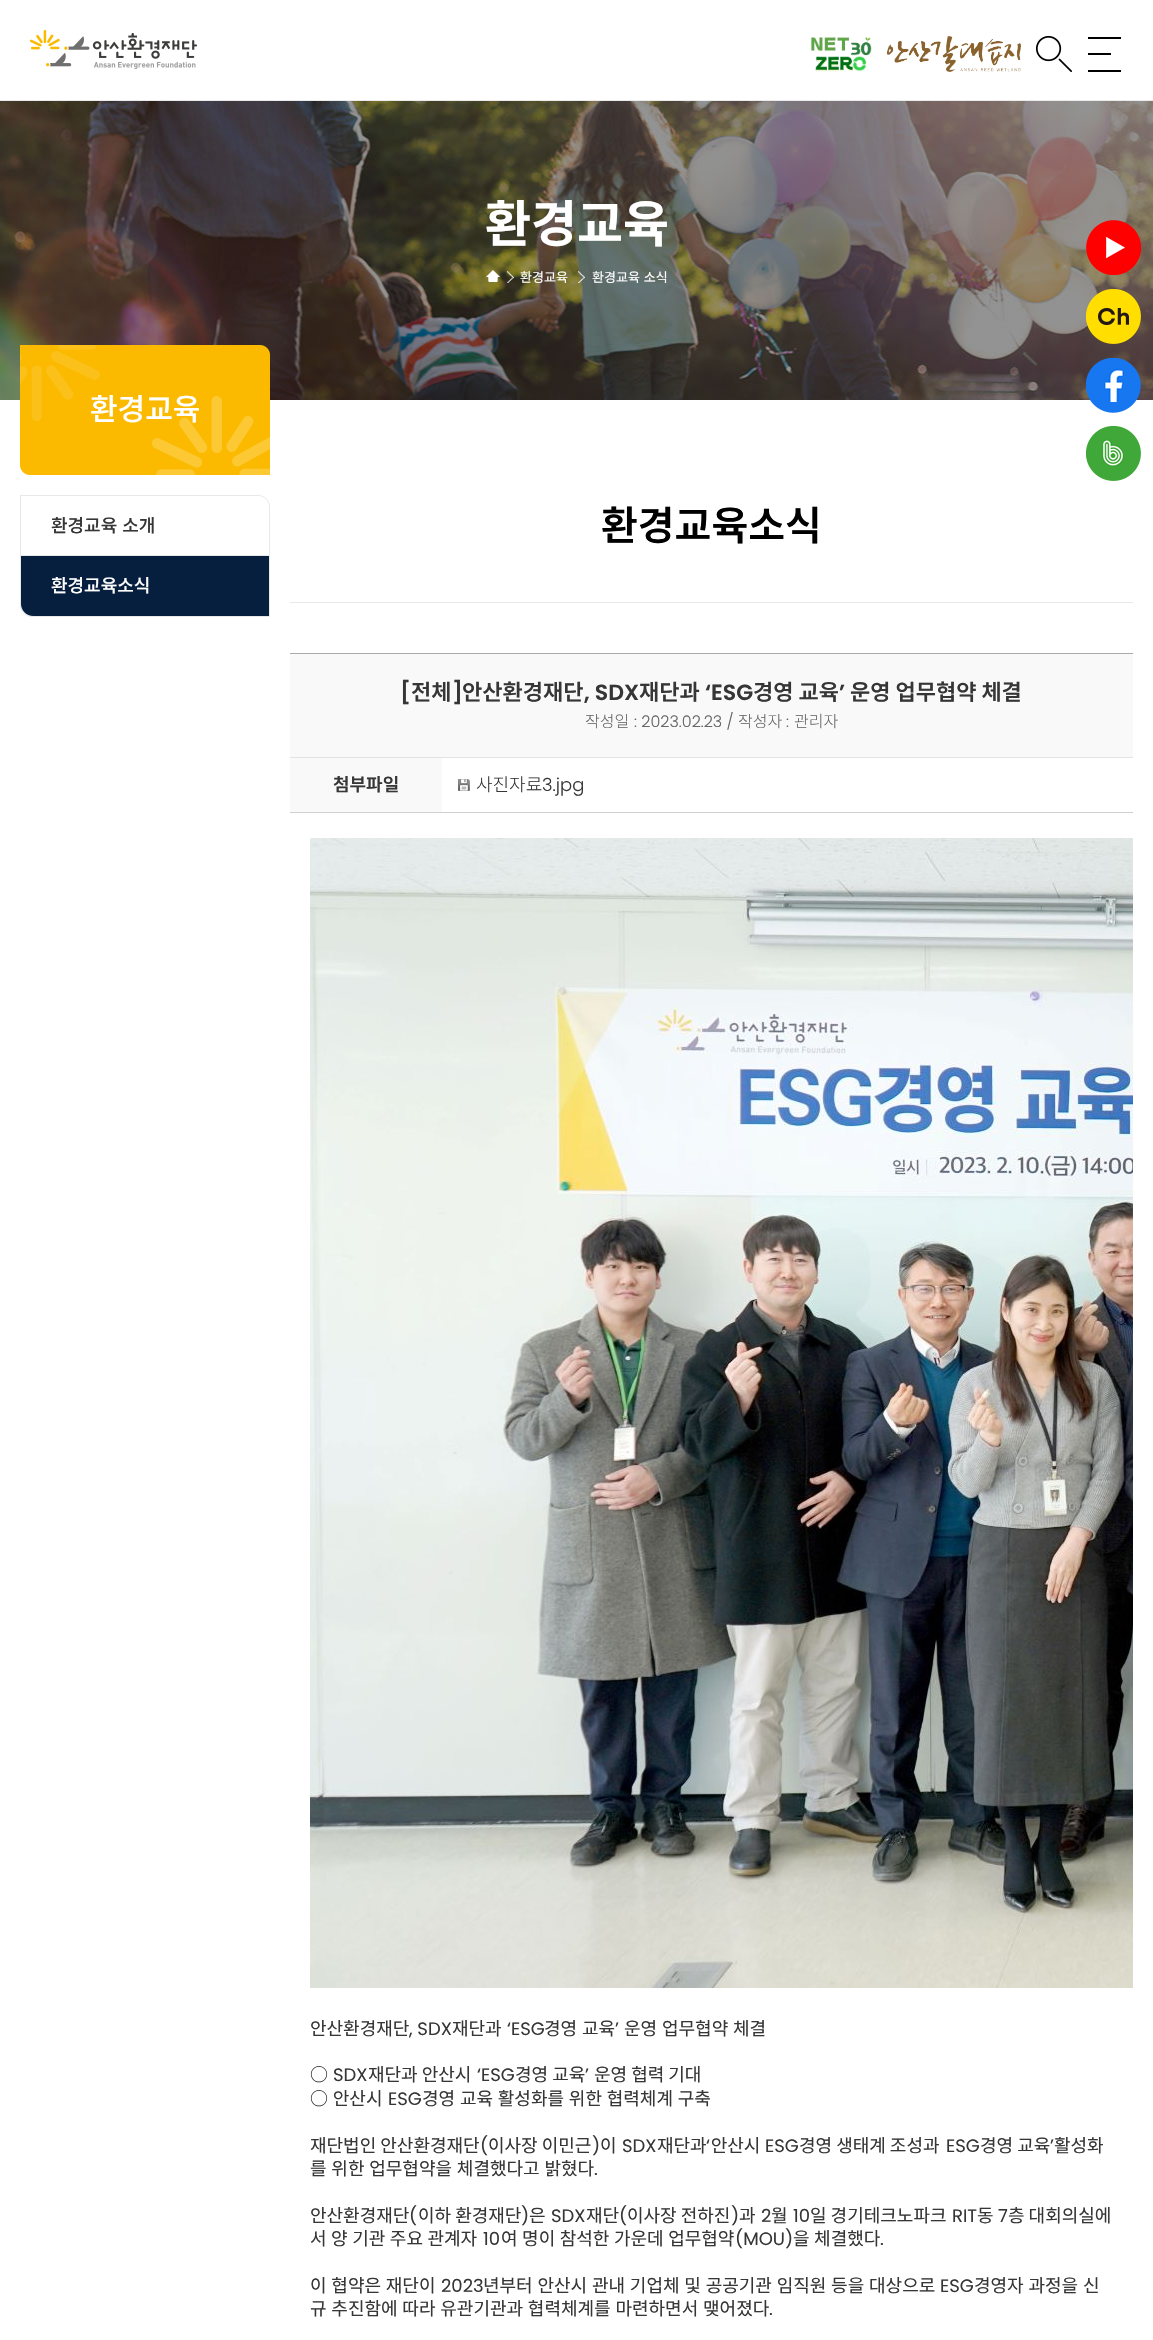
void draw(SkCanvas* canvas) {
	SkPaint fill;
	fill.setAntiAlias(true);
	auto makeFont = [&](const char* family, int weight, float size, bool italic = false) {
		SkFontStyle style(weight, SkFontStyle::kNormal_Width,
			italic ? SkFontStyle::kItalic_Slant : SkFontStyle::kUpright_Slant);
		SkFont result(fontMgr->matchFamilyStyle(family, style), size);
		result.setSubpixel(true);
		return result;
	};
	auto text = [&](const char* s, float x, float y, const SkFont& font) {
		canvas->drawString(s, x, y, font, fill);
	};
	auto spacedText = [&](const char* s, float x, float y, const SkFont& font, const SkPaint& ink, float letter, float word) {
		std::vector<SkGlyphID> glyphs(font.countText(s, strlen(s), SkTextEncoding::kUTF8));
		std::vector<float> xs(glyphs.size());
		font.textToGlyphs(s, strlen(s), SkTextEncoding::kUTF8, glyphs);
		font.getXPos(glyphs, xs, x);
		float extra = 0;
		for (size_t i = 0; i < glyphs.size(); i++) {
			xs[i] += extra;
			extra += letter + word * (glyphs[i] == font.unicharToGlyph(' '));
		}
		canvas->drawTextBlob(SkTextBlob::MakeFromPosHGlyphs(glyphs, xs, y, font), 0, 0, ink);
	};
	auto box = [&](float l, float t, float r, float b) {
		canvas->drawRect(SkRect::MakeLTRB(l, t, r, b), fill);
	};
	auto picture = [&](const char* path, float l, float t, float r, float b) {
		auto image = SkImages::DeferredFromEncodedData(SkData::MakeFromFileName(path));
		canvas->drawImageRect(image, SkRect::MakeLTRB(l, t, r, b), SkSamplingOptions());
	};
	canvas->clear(0xFFFFFFFF);
	fill.setColor(0xFFEBEBEB);
	box(0, 100, 1153, 101);
	picture("image0.png", 30, 30, 197, 69);
	picture("image1.png", 810, 37, 872, 72);
	picture("image2.png", 887, 36, 1021, 72);
	picture("image3.png", 1036, 36, 1072, 72);
	picture("image4.png", 1088, 37, 1121, 72);
	picture("image5.png", 0, 101, 1153, 400);
	picture("image6.png", 486, 270, 500, 282);
	picture("image7.png", 507, 271, 514, 283);
	picture("image8.png", 578, 271, 585, 283);
	picture("image9.png", 20, 345, 270, 475);
	fill.setStyle(SkPaint::kStroke_Style);
	fill.setStrokeWidth(1);
	fill.setColor(0xFFE8E8E8);
	canvas->drawPath(SkPathBuilder().moveTo(20.5f, 495.5f).lineTo(258, 495.5f).cubicTo(264.5f, 495.5f, 269.5f, 500.5f, 269.5f, 507).lineTo(269.5f, 616.5f).lineTo(32, 616.5f).cubicTo(25.5f, 616.5f, 20.5f, 611.5f, 20.5f, 605).close().detach(), fill);
	fill.setStyle(SkPaint::kFill_Style);
	box(21, 555, 269, 556);
	fill.setColor(0xFFFFFFFF);
	canvas->drawPath(SkPathBuilder().moveTo(21, 496).lineTo(257, 496).cubicTo(263.5f, 496, 269, 501.5f, 269, 508).lineTo(269, 555).lineTo(21, 555).close().detach(), fill);
	fill.setColor(0xFF061F3E);
	canvas->drawPath(SkPathBuilder().moveTo(21, 556).lineTo(269, 556).lineTo(269, 616).lineTo(33, 616).cubicTo(26.5f, 616, 21, 610.5f, 21, 604).close().detach(), fill);
	fill.setColor(0xFFE8E8E8);
	box(290, 602, 1133, 603);
	fill.setColor(0xFFAAAAAA);
	box(290, 653, 1133, 654);
	fill.setColor(0xFFF9F9F9);
	box(290, 654, 1133, 757);
	fill.setColor(0xFFE3E3E3);
	box(290, 757, 1133, 758);
	fill.setColor(0xFFF9F9F9);
	box(290, 758, 442, 812);
	fill.setColor(0xFFD0D0D0);
	box(290, 812, 1133, 813);
	picture("image10.png", 458, 779, 470, 791);
	picture("image11.png", 310, 838, 1133, 1988);
	picture("image12.png", 1086, 220, 1141, 275);
	picture("image13.png", 1086, 289, 1141, 344);
	picture("image14.png", 1086, 358, 1141, 413);
	picture("image15.png", 1086, 426, 1141, 481);
	auto font1 = makeFont("Noto Sans KR", 700, 50);
	fill.setColor(0xFFFFFFFF);
	text("환경교육", 485, 242, font1);
	auto font2 = makeFont("Noto Sans KR", 400, 13);
	text("환경교육", 520, 282, font2);
	spacedText("환경교육 소식", 592, 282, font2, fill, 0, 1);
	auto font3 = makeFont("Noto Sans KR", 500, 30);
	text("환경교육", 90, 420, font3);
	auto font4 = makeFont("Noto Sans KR", 500, 18);
	fill.setColor(0xFF363636);
	spacedText("환경교육 소개", 51, 532, font4, fill, 0, 1);
	fill.setColor(0xFFFFFFFF);
	text("환경교육소식", 51, 592, font4);
	auto font5 = makeFont("Noto Sans KR", 600, 40);
	fill.setColor(0xFF000000);
	text("환경교육소식", 601, 540, font5);
	auto font6 = makeFont("Poppins", 600, 22);
	fill.setColor(0xFF363636);
	text("[", 400, 700, font6);
	auto font7 = makeFont("Noto Sans KR", 600, 22);
	text("전체", 411, 700, font7);
	text("]", 452, 700, font6);
	text("안산환경재단", 462, 700, font7);
	text(", SDX", 584, 700, font6);
	text("재단과", 639, 700, font7);
	text("‘ESG", 705, 700, font6);
	text("경영 교육", 753, 700, font7);
	text("’", 839, 700, font6);
	text("운영 업무협약 체결", 850, 700, font7);
	auto font8 = makeFont("Noto Sans KR", 300, 16);
	fill.setColor(0xFF666666);
	text("작성일", 585, 727, font8);
	auto font9 = makeFont("Poppins", 300, 16);
	text(": 2023.02.23 /", 634, 727, font9);
	text("작성자", 738, 727, font8);
	text(":", 786, 727, font9);
	text("관리자", 794, 727, font8);
	auto font10 = makeFont("Noto Sans KR", 600, 18);
	fill.setColor(0xFF363636);
	text("첨부파일", 333, 791, font10);
	auto font11 = makeFont("Noto Sans KR", 300, 18);
	text("사진자료", 476, 791, font11);
	auto font12 = makeFont("Poppins", 300, 18);
	text("3.jpg", 542, 791, font12);
	auto font13 = makeFont("Noto Sans KR", 400, 18);
	text("안산환경재단", 310, 2035, font13);
	auto font14 = makeFont("Poppins", 400, 18);
	text(", SDX", 409, 2035, font14);
	text("재단과", 452, 2035, font13);
	text("‘ESG", 507, 2035, font14);
	text("경영", 544, 2035, font13);
	text("교육", 582, 2035, font13);
	text("’", 615, 2035, font14);
	text("운영", 624, 2035, font13);
	text("업무협약", 662, 2035, font13);
	text("체결", 733, 2035, font13);
	text("○", 310, 2081, font13);
	text("SDX", 333, 2081, font14);
	text("재단과 안산시", 368, 2081, font13);
	text("‘ESG", 477, 2081, font14);
	text("경영 교육", 515, 2081, font13);
	text("’", 585, 2081, font14);
	text("운영 협력 기대", 594, 2081, font13);
	spacedText("○ 안산시", 310, 2105, font13, fill, 0, 0.75f);
	text("ESG", 388, 2105, font14);
	spacedText("경영 교육 활성화를 위한 협력체계 구축", 422, 2105, font13, fill, 0, 0.75f);
	text("재단법인 안산환경재단", 310, 2152, font13);
	text("(", 480, 2152, font14);
	text("이사장 이민근", 488, 2152, font13);
	text(")", 592, 2152, font14);
	text("이", 600, 2152, font13);
	text("SDX", 622, 2152, font14);
	text("재단과 안산시", 657, 2152, font13);
	text("경영 생태계 조성과", 799, 2152, font13);
	text("경영 교육", 980, 2152, font13);
	text("활성화", 1054, 2152, font13);
	text("‘", 706, 2152, font14);
	text("ESG", 765, 2152, font14);
	text("ESG", 946, 2152, font14);
	text("’", 1050, 2152, font14);
	spacedText("를 위한 업무협약을 체결했다고 밝혔다", 310, 2175, font13, fill, 0, 0.75f);
	text(".", 594, 2175, font14);
	text("안산환경재단", 310, 2222, font13);
	text("(", 409, 2222, font14);
	text("이하 환경재단", 418, 2222, font13);
	text(")", 521, 2222, font14);
	text("은", 529, 2222, font13);
	text("SDX", 551, 2222, font14);
	text("재단", 586, 2222, font13);
	text("(", 619, 2222, font14);
	text("이사장 전하진", 627, 2222, font13);
	text(")", 731, 2222, font14);
	text("과", 739, 2222, font13);
	text("2", 761, 2222, font14);
	text("월", 771, 2222, font13);
	text("10", 793, 2222, font14);
	text("일 경기테크노파크", 810, 2222, font13);
	text("RIT", 952, 2222, font14);
	text("동", 977, 2222, font13);
	text("7", 998, 2222, font14);
	text("층 대회의실에", 1008, 2222, font13);
	spacedText("서 양 기관 주요 관계자", 310, 2245, font13, fill, 0, 0.5f);
	text("10", 483, 2245, font14);
	spacedText("여 명이 참석한 가운데 업무협약", 501, 2245, font13, fill, 0, 0.5f);
	text("(MOU)", 735, 2245, font14);
	spacedText("을 체결했다", 793, 2245, font13, fill, 0, 0.5f);
	text(".", 880, 2245, font14);
	spacedText("이 협약은 재단이", 310, 2292, font13, fill, 0, 0.75f);
	text("2023", 441, 2292, font14);
	spacedText("년부터 안산시 관내 기업체 및 공공기관 임직원 등을 대상으로", 483, 2292, font13, fill, 0, 0.75f);
	text("ESG", 940, 2292, font14);
	spacedText("경영자 과정을 신", 974, 2292, font13, fill, 0, 0.75f);
	spacedText("규 추진함에 따라 유관기관과 협력체계를 마련하면서 맺어졌다", 310, 2315, font13, fill, 0, 0.75f);
	text(".", 769, 2315, font14);
}
